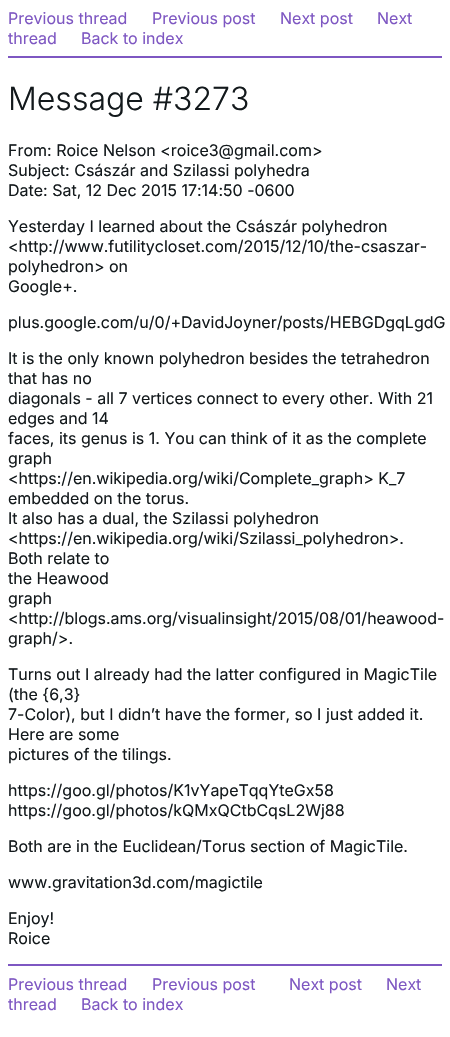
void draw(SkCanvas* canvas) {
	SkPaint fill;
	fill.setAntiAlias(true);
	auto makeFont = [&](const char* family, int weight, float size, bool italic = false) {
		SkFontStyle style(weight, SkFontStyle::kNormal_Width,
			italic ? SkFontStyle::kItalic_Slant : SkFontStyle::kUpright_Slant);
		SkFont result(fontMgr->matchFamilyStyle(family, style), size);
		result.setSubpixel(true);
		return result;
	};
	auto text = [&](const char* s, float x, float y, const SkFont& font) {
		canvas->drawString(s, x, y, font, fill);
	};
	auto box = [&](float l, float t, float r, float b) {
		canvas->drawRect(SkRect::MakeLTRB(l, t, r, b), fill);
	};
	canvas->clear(0xFFFFFFFF);
	fill.setColor(0xFF7E57C2);
	box(8, 56, 442, 58);
	box(8, 964, 442, 966);
	auto font1 = makeFont("Inter", 400, 16);
	text("Previous thread", 8, 24, font1);
	text("Previous post", 152, 24, font1);
	text("Next post", 280, 24, font1);
	text("Next", 377, 24, font1);
	text("thread", 8, 44, font1);
	text("Back to index", 81, 44, font1);
	auto font2 = makeFont("Inter", 300, 32);
	fill.setColor(0xFF13191C);
	text("Message #3273", 8, 110, font2);
	text("From: Roice Nelson <roice3@gmail.com>", 8, 156, font1);
	text("Subject: Császár and Szilassi polyhedra", 8, 176, font1);
	text("Date: Sat, 12 Dec 2015 17:14:50 -0600", 8, 196, font1);
	text("Yesterday I learned about the Császár polyhedron", 8, 232, font1);
	text("<http://www.futilitycloset.com/2015/12/10/the-csaszar-", 8, 252, font1);
	text("polyhedron> on", 8, 272, font1);
	text("Google+.", 8, 292, font1);
	text("plus.google.com/u/0/+DavidJoyner/posts/HEBGDgqLgdG", 8, 328, font1);
	text("It is the only known polyhedron besides the tetrahedron", 8, 364, font1);
	text("that has no", 8, 384, font1);
	text("diagonals - all 7 vertices connect to every other. With 21", 8, 404, font1);
	text("edges and 14", 8, 424, font1);
	text("faces, its genus is 1. You can think of it as the complete", 8, 444, font1);
	text("graph", 8, 464, font1);
	text("<https://en.wikipedia.org/wiki/Complete_graph> K_7", 8, 484, font1);
	text("embedded on the torus.", 8, 504, font1);
	text("It also has a dual, the Szilassi polyhedron", 8, 524, font1);
	text("<https://en.wikipedia.org/wiki/Szilassi_polyhedron>.", 8, 544, font1);
	text("Both relate to", 8, 564, font1);
	text("the Heawood", 8, 584, font1);
	text("graph", 8, 604, font1);
	text("<http://blogs.ams.org/visualinsight/2015/08/01/heawood-", 8, 624, font1);
	text("graph/>.", 8, 644, font1);
	text("Turns out I already had the latter configured in MagicTile", 8, 680, font1);
	text("(the {6,3}", 8, 700, font1);
	text("7-Color), but I didn’t have the former, so I just added it.", 8, 720, font1);
	text("Here are some", 8, 740, font1);
	text("pictures of the tilings.", 8, 760, font1);
	text("https://goo.gl/photos/K1vYapeTqqYteGx58", 8, 796, font1);
	text("https://goo.gl/photos/kQMxQCtbCqsL2Wj88", 8, 816, font1);
	text("Both are in the Euclidean/Torus section of MagicTile.", 8, 852, font1);
	text("www.gravitation3d.com/magictile", 8, 888, font1);
	text("Enjoy!", 8, 924, font1);
	text("Roice", 8, 944, font1);
	fill.setColor(0xFF7E57C2);
	text("Previous thread", 8, 990, font1);
	text("Previous post", 152, 990, font1);
	text("Next post", 289, 990, font1);
	text("Next", 386, 990, font1);
	text("thread", 8, 1010, font1);
	text("Back to index", 81, 1010, font1);
}
